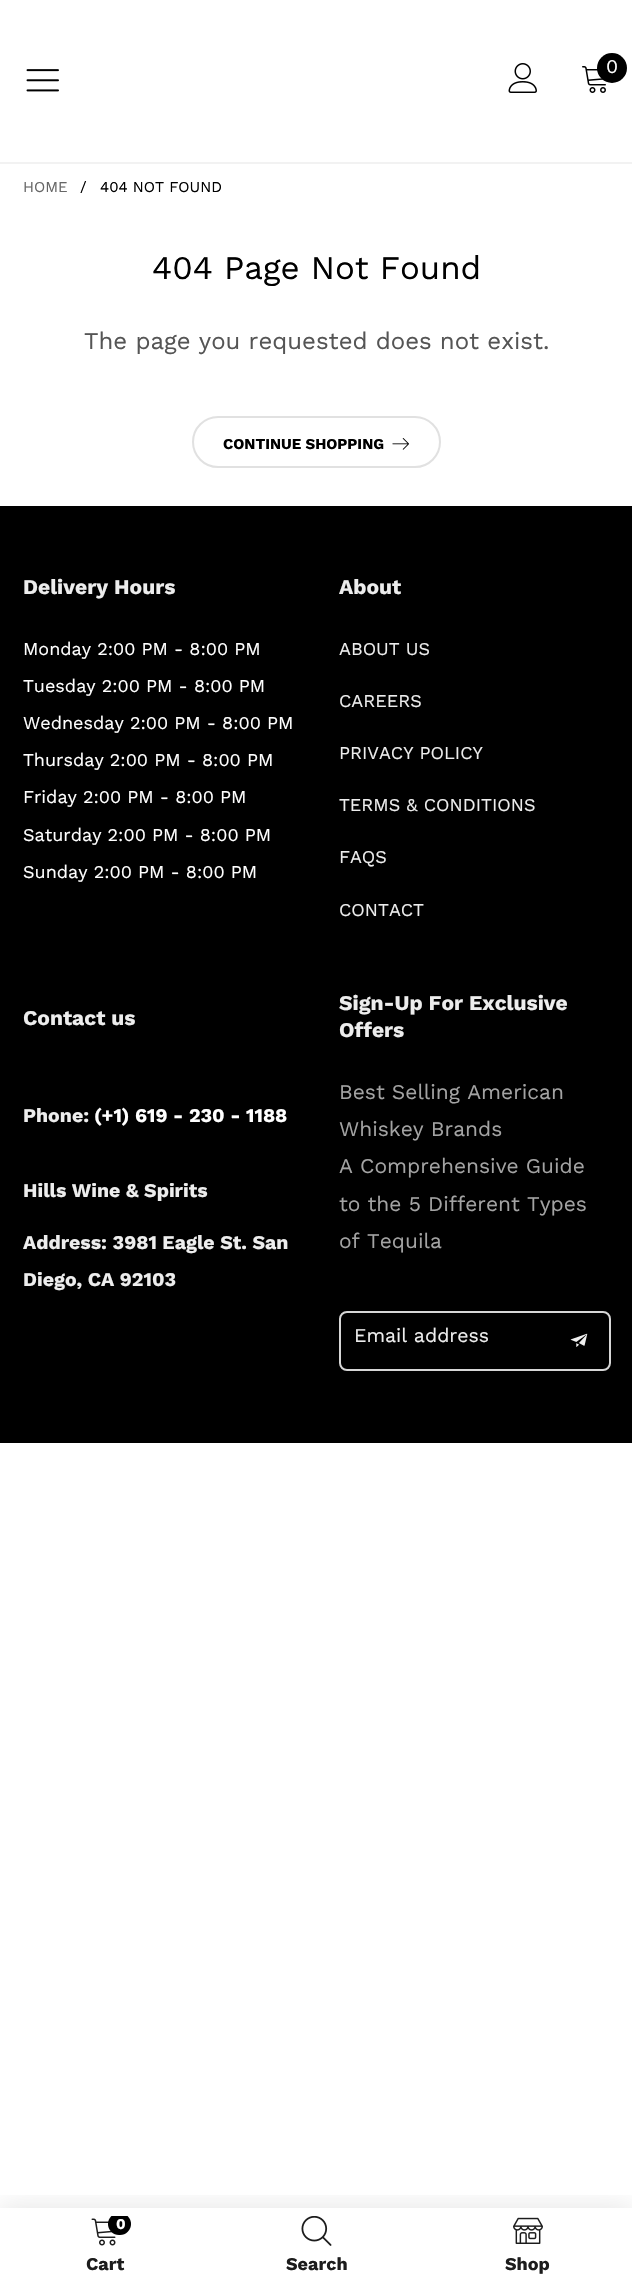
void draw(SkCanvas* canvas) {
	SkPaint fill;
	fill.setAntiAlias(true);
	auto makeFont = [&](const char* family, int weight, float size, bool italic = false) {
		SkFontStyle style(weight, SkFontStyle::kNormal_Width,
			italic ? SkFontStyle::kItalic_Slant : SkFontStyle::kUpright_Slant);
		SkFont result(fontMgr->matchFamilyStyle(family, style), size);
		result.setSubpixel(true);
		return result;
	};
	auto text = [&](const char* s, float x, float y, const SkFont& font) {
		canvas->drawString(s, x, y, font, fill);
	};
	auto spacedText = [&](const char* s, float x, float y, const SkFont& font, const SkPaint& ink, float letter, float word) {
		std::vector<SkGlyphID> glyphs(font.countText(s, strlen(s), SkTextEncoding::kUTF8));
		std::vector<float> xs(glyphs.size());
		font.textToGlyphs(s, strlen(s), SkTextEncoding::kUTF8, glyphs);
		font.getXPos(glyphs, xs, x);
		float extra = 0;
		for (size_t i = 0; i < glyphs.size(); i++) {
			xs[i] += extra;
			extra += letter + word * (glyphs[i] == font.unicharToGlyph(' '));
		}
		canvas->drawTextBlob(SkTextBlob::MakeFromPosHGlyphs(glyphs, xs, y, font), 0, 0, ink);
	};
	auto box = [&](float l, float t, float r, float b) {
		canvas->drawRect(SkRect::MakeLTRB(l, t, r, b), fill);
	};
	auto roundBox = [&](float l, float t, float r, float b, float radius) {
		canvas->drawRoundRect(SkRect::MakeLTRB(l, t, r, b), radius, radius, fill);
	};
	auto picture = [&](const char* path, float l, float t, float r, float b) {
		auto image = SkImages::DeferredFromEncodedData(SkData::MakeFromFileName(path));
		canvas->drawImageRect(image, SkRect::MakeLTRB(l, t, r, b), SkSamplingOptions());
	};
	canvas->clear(0xFFFFFFFF);
	fill.setColor(0xFFF2F2F2);
	box(0, 162, 632, 164);
	picture("image0.png", 508, 63, 537, 93);
	picture("image1.png", 582, 66, 606, 93);
	fill.setColor(0xFF000000);
	canvas->drawCircle(612, 68, 15, fill);
	picture("image2.png", 26, 69, 59, 92);
	fill.setStyle(SkPaint::kStroke_Style);
	fill.setStrokeWidth(2);
	fill.setColor(0xFFE1E1E1);
	canvas->drawRoundRect(SkRect::MakeLTRB(193, 417, 440, 467), 25, 25, fill);
	picture("image3.png", 392, 438, 409, 450);
	fill.setStyle(SkPaint::kFill_Style);
	fill.setColor(0xFF000000);
	box(0, 506, 632, 1443);
	fill.setStyle(SkPaint::kStroke_Style);
	fill.setColor(0xFFD6D6D6);
	canvas->drawRoundRect(SkRect::MakeLTRB(340, 1312, 610, 1370), 7, 7, fill);
	picture("image4.png", 570, 1333, 588, 1347);
	canvas->save();
	canvas->clipRect(SkRect::MakeLTRB(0, 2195, 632, 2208));
	fill.setStyle(SkPaint::kFill_Style);
	fill.setColor(0x1A000000);
	fill.setMaskFilter(SkMaskFilter::MakeBlur(kNormal_SkBlurStyle, 14));
	canvas->drawRect(SkRect::MakeLTRB(0, 2207, 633, 2289), fill);
	fill.setMaskFilter(nullptr);
	canvas->restore();
	picture("image5.png", 91, 2218, 116, 2246);
	canvas->save();
	canvas->clipRect(SkRect::MakeLTRB(0, 2216, 212, 2283));
	fill.setColor(0xFF000000);
	roundBox(108, 2213, 131, 2235, 11);
	canvas->restore();
	picture("image6.png", 301, 2216, 332, 2246);
	picture("image7.png", 513, 2217, 543, 2244);
	auto font1 = makeFont("Work Sans", 400, 19.5f);
	fill.setColor(0xFFFFFFFF);
	text("0", 606, 73, font1);
	auto font2 = makeFont("Work Sans", 400, 15);
	fill.setColor(0xFF666666);
	text("HOME", 23, 192, font2);
	fill.setColor(0xFF000000);
	text("/", 80, 192, font2);
	text("404 NOT FOUND", 100, 192, font2);
	auto font3 = makeFont("Work Sans", 400, 33);
	text("404 Page Not Found", 152, 279, font3);
	auto font4 = makeFont("Work Sans", 400, 24);
	fill.setColor(0xFF555555);
	text("The page you requested does not exist.", 84, 349, font4);
	auto font5 = makeFont("Work Sans", 700, 15);
	fill.setColor(0xFF000000);
	text("CONTINUE SHOPPING", 223, 449, font5);
	auto font6 = makeFont("Work Sans", 700, 21);
	fill.setColor(0xFFEDEDED);
	text("Delivery Hours", 23, 594, font6);
	auto font7 = makeFont("Work Sans", 400, 18);
	fill.setColor(0xFFFFFFFF);
	text("Monday 2:00 PM - 8:00 PM", 23, 655, font7);
	text("Tuesday 2:00 PM - 8:00 PM", 23, 692, font7);
	text("Wednesday 2:00 PM - 8:00 PM", 23, 729, font7);
	text("Thursday 2:00 PM - 8:00 PM", 23, 766, font7);
	text("Friday 2:00 PM - 8:00 PM", 23, 803, font7);
	text("Saturday 2:00 PM - 8:00 PM", 23, 841, font7);
	text("Sunday 2:00 PM - 8:00 PM", 23, 878, font7);
	fill.setColor(0xFFEDEDED);
	text("About", 339, 594, font6);
	text("ABOUT US", 339, 655, font7);
	text("CAREERS", 339, 707, font7);
	text("PRIVACY POLICY", 339, 759, font7);
	text("TERMS & CONDITIONS", 339, 811, font7);
	text("FAQS", 339, 863, font7);
	text("CONTACT", 339, 916, font7);
	text("Contact us", 23, 1025, font6);
	auto font8 = makeFont("Work Sans", 700, 19.5f);
	text("Phone:", 23, 1122, font8);
	fill.setColor(0xFFFFFFFF);
	text("(+1) 619 - 230 - 1188", 94, 1122, font8);
	fill.setColor(0xFFEDEDED);
	text("Hills Wine & Spirits", 23, 1197, font8);
	text("Address: 3981 Eagle St. San", 23, 1249, font8);
	text("Diego, CA 92103", 23, 1286, font8);
	text("Sign-Up For Exclusive", 339, 1010, font6);
	text("Offers", 339, 1037, font6);
	auto font9 = makeFont("Work Sans", 400, 21);
	fill.setColor(0xFFA3A3A3);
	text("Best Selling American", 339, 1099, font9);
	text("Whiskey Brands", 339, 1136, font9);
	text("A Comprehensive Guide", 339, 1173, font9);
	text("to the 5 Different Types", 339, 1211, font9);
	text("of Tequila", 339, 1248, font9);
	fill.setColor(0xFFEDEDED);
	text("Email address", 354, 1342, font1);
	fill.setColor(0xFFFFFFFF);
	spacedText("0", 116, 2229, font5, fill, -2, 0);
	auto font10 = makeFont("Work Sans", 700, 18);
	fill.setColor(0xFF1C1C1C);
	text("Cart", 86, 2270, font10);
	text("Search", 286, 2270, font10);
	text("Shop", 505, 2270, font10);
}
